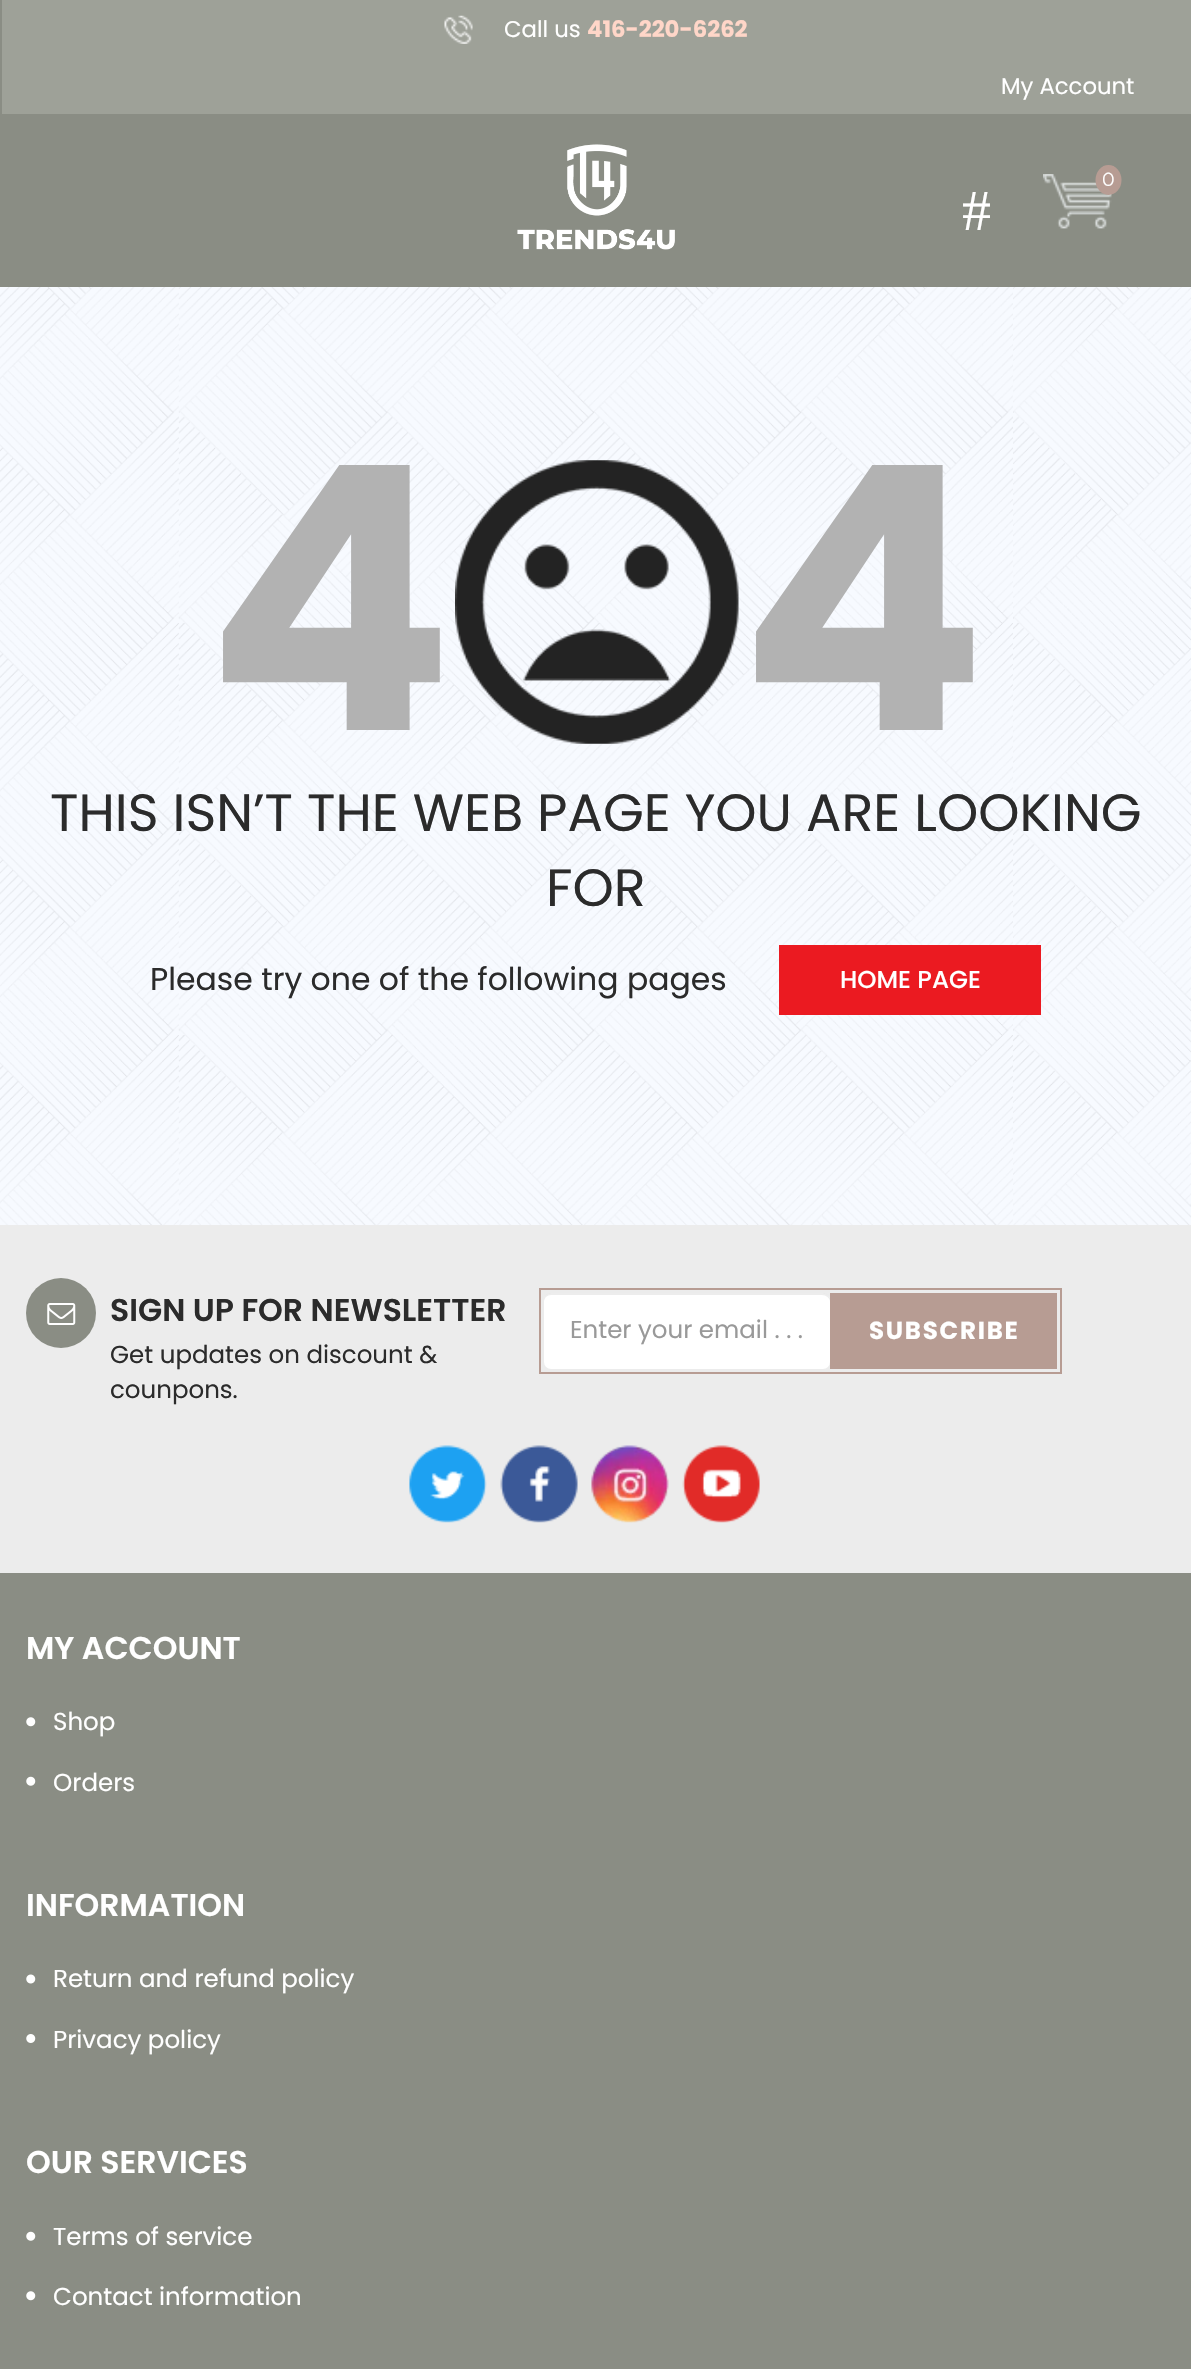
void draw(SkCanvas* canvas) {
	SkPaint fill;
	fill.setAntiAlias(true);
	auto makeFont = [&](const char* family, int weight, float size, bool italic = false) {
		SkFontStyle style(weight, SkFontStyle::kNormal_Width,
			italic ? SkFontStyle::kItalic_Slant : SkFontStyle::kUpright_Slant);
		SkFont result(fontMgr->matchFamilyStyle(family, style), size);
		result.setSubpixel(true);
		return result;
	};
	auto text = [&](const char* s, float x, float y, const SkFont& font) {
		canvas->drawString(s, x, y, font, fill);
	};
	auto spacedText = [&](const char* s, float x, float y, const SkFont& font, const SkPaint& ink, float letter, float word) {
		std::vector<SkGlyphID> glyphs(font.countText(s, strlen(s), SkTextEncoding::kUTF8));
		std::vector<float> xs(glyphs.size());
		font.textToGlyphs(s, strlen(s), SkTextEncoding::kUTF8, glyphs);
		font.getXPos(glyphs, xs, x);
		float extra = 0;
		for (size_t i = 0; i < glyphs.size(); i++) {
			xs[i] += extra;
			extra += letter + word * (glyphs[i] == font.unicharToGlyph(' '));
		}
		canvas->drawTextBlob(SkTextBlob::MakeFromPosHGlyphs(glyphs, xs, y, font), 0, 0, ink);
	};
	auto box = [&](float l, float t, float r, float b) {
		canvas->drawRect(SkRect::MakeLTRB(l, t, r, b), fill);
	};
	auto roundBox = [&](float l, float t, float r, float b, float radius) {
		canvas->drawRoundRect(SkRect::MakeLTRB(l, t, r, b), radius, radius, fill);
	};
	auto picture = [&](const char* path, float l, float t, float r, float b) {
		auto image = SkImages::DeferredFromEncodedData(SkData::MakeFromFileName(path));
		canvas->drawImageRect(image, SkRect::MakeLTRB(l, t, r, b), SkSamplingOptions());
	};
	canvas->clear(0xFFF7FAFF);
	picture("image0.png", 0, 287, 1191, 1225);
	fill.setColor(0xFF8A8D84);
	box(0, 0, 1191, 287);
	fill.setColor(0xFF9EA198);
	box(2, 0, 1191, 114);
	picture("image1.png", 444, 15, 473, 44);
	picture("image2.png", 517, 144, 675, 250);
	picture("image3.png", 1043, 174, 1112, 229);
	fill.setColor(0xFFB79C93);
	canvas->drawOval(SkRect::MakeLTRB(1095.5f, 165, 1121.5f, 195), fill);
	picture("image4.png", 455, 460, 739, 744);
	fill.setColor(0xFFEB1A21);
	box(779, 945, 1041, 1015);
	fill.setColor(0xFF8A8D84);
	box(0, 1573, 1191, 2369);
	fill.setColor(0xFFECECEC);
	box(0, 1225, 1191, 1573);
	fill.setColor(0xFF8A8D84);
	canvas->drawCircle(61, 1313, 35, fill);
	picture("image5.png", 47, 1303, 76, 1325);
	fill.setStyle(SkPaint::kStroke_Style);
	fill.setStrokeWidth(2);
	fill.setColor(0xFFB79C93);
	canvas->drawRect(SkRect::MakeLTRB(540, 1289, 1061, 1373), fill);
	fill.setStyle(SkPaint::kFill_Style);
	fill.setColor(0xFFFFFFFF);
	roundBox(544, 1293, 830, 1369, 7);
	fill.setColor(0x12000000);
	canvas->drawPath(SkPathBuilder().moveTo(551, 1295).lineTo(822, 1295).cubicTo(826, 1295, 830, 1298, 830, 1302).cubicTo(830, 1298, 829, 1294, 824, 1293).lineTo(550, 1293).cubicTo(545, 1294, 544, 1298, 544, 1302).cubicTo(544, 1298, 547, 1295, 551, 1295).close().detach(), fill);
	fill.setColor(0xFFB79C93);
	box(830, 1293, 1057, 1369);
	picture("image6.png", 409, 1445, 487, 1523);
	picture("image7.png", 500, 1445, 578, 1523);
	picture("image8.png", 591, 1445, 669, 1523);
	picture("image9.png", 682, 1445, 760, 1523);
	picture("image10.png", 26, 1717, 36, 1727);
	picture("image11.png", 26, 1776, 36, 1786);
	picture("image12.png", 26, 1974, 36, 1984);
	picture("image13.png", 26, 2034, 36, 2043);
	picture("image11.png", 26, 2231, 36, 2241);
	picture("image10.png", 26, 2291, 36, 2301);
	auto font1 = makeFont("Poppins", 400, 22.75f);
	fill.setColor(0xFFFFFFFF);
	text("Call us", 504, 37, font1);
	auto font2 = makeFont("Poppins", 700, 22.75f);
	fill.setColor(0xFFFFD6C8);
	text("416-220-6262", 587, 37, font2);
	fill.setColor(0xFFFFFFFF);
	text("My Account", 1001, 94, font1);
	auto font3 = makeFont("Montserrat", 100, 19);
	text("0", 1102, 186, font3);
	auto font4 = makeFont("Liberation Serif", 400, 58);
	text("#", 962, 230, font4);
	auto font5 = makeFont("Poppins", 700, 368);
	fill.setColor(0xFFB2B2B2);
	text("4", 205, 730, font5);
	text("4", 738, 730, font5);
	auto font6 = makeFont("Poppins", 400, 52.5f);
	fill.setColor(0xFF2B2B2B);
	text("THIS ISN’T THE WEB PAGE YOU ARE LOOKING", 50, 831, font6);
	text("FOR", 546, 906, font6);
	auto font7 = makeFont("Poppins", 400, 31.5f);
	text("Please try one of the following pages", 150, 990, font7);
	auto font8 = makeFont("Poppins", 500, 24.5f);
	fill.setColor(0xFFFFFFFF);
	text("HOME PAGE", 840, 988, font8);
	auto font9 = makeFont("Poppins", 600, 31.5f);
	fill.setColor(0xFF2B2B2B);
	text("SIGN UP FOR NEWSLETTER", 110, 1321, font9);
	auto font10 = makeFont("Poppins", 400, 24.5f);
	text("Get updates on discount &", 110, 1363, font10);
	text("counpons.", 110, 1398, font10);
	fill.setColor(0xFF999999);
	text("Enter your email . . .", 570, 1338, font10);
	auto font11 = makeFont("Poppins", 700, 24.5f);
	fill.setColor(0xFFFFFFFF);
	spacedText("SUBSCRIBE", 869, 1339, font11, fill, 1.75f, 0);
	text("MY ACCOUNT", 26, 1659, font9);
	text("Shop", 53, 1730, font10);
	text("Orders", 53, 1791, font10);
	text("INFORMATION", 26, 1916, font9);
	text("Return and refund policy", 53, 1987, font10);
	text("Privacy policy", 53, 2048, font10);
	text("OUR SERVICES", 26, 2173, font9);
	text("Terms of service", 53, 2245, font10);
	text("Contact information", 53, 2305, font10);
}
